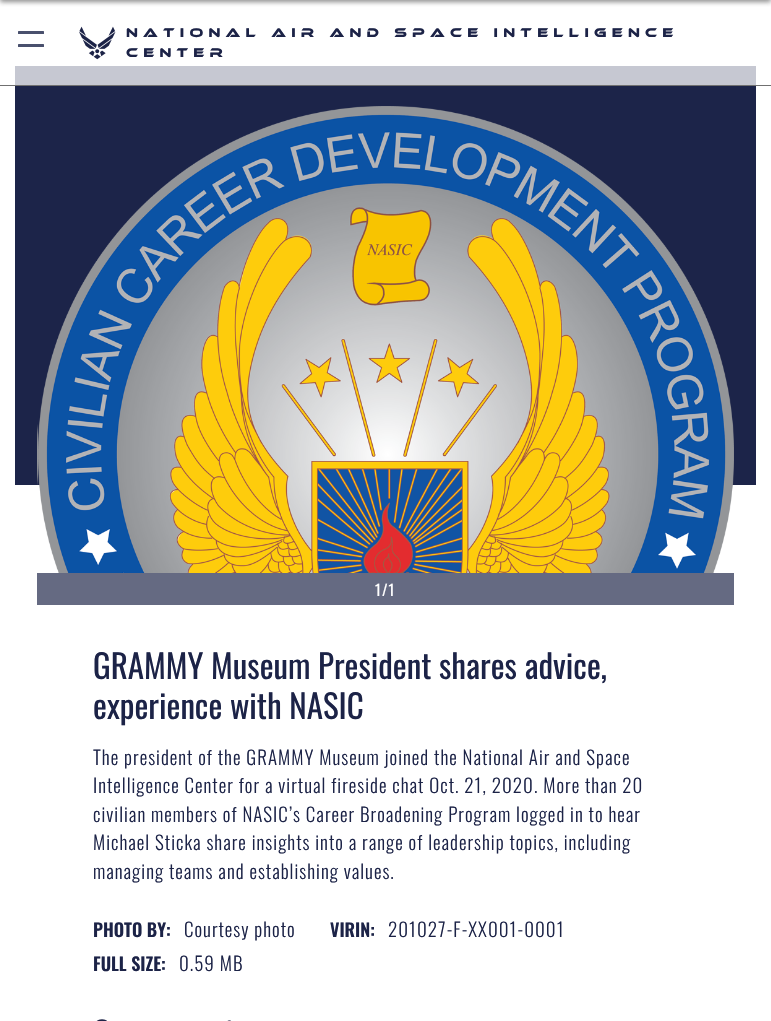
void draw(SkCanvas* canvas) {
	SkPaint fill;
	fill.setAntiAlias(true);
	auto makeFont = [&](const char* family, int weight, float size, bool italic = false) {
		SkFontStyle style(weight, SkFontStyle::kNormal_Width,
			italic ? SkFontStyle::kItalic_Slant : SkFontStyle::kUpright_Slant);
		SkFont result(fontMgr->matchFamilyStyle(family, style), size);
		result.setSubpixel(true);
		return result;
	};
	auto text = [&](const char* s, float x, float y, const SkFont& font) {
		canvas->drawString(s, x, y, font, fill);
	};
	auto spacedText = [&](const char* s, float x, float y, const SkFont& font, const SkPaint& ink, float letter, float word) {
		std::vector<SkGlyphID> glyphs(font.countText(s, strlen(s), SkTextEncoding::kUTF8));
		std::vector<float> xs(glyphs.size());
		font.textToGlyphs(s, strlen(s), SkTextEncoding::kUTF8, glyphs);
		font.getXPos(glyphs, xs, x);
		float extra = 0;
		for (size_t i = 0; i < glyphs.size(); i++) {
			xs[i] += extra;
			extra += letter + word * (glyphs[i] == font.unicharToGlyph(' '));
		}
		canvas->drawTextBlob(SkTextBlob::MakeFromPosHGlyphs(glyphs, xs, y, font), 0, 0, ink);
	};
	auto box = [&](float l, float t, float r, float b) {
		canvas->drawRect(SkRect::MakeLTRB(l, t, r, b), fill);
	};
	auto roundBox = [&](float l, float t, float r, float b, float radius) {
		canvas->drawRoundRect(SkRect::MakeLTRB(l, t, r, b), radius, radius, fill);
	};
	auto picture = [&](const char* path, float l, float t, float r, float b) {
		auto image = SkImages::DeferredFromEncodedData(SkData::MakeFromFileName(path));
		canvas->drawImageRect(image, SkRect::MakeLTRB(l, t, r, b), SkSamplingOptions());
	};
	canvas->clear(0xFFFFFFFF);
	fill.setColor(0x801A1A1A);
	fill.setMaskFilter(SkMaskFilter::MakeBlur(kNormal_SkBlurStyle, 2.5f));
	canvas->drawRect(SkRect::MakeLTRB(0, -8, 771, 2), fill);
	fill.setMaskFilter(nullptr);
	fill.setColor(0xFF707070);
	box(0, 85, 771, 86);
	fill.setColor(0xFF49506D);
	roundBox(18, 31, 44, 34, 0.5f);
	roundBox(18, 44, 44, 47, 0.5f);
	picture("image0.png", 79, 26, 116, 60);
	fill.setColor(0xFF1C2449);
	box(15, 86, 756, 485);
	fill.setColor(0xFFC6C8D2);
	box(15, 66, 756, 85);
	picture("image1.png", 37, 424, 38, 485);
	picture("image2.png", 38, 106, 734, 573);
	fill.setColor(0xFF656A82);
	box(37, 573, 734, 605);
	picture("image3.png", 96, 1019, 107, 1021);
	picture("image4.png", 227, 1020, 231, 1021);
	auto font1 = makeFont("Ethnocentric", 400, 13);
	fill.setColor(0xFF1C2347);
	spacedText("National Air and Space Intelligence", 126, 37, font1, fill, 5.2f, 0);
	spacedText("Center", 126, 57, font1, fill, 5.2f, 0);
	auto font2 = makeFont("Oswald", 400, 15);
	fill.setColor(0xFFFFFFFF);
	spacedText("1/1", 375, 596, font2, fill, 1, 0);
	auto font3 = makeFont("Oswald", 400, 33);
	fill.setColor(0xFF1C2347);
	text("GRAMMY Museum President shares advice,", 93, 679, font3);
	text("experience with NASIC", 93, 719, font3);
	auto font4 = makeFont("Oswald", 300, 19);
	spacedText("The president of the GRAMMY Museum joined the National Air and Space", 93, 765, font4, fill, 1, 0);
	spacedText("Intelligence Center for a virtual fireside chat Oct. 21, 2020. More than 20", 93, 793, font4, fill, 1, 0);
	spacedText("civilian members of NASIC’s Career Broadening Program logged in to hear", 93, 822, font4, fill, 1, 0);
	spacedText("Michael Sticka share insights into a range of leadership topics, including", 93, 850, font4, fill, 1, 0);
	spacedText("managing teams and establishing values.", 93, 879, font4, fill, 1, 0);
	auto font5 = makeFont("Oswald", 600, 18);
	text("PHOTO BY:", 93, 937, font5);
	spacedText("Courtesy photo", 184, 937, font4, fill, 1, 0);
	text("VIRIN:", 330, 937, font5);
	spacedText("201027-F-XX001-0001", 388, 937, font4, fill, 1, 0);
	text("FULL SIZE:", 93, 971, font5);
	spacedText("0.59 MB", 179, 971, font4, fill, 1, 0);
}
